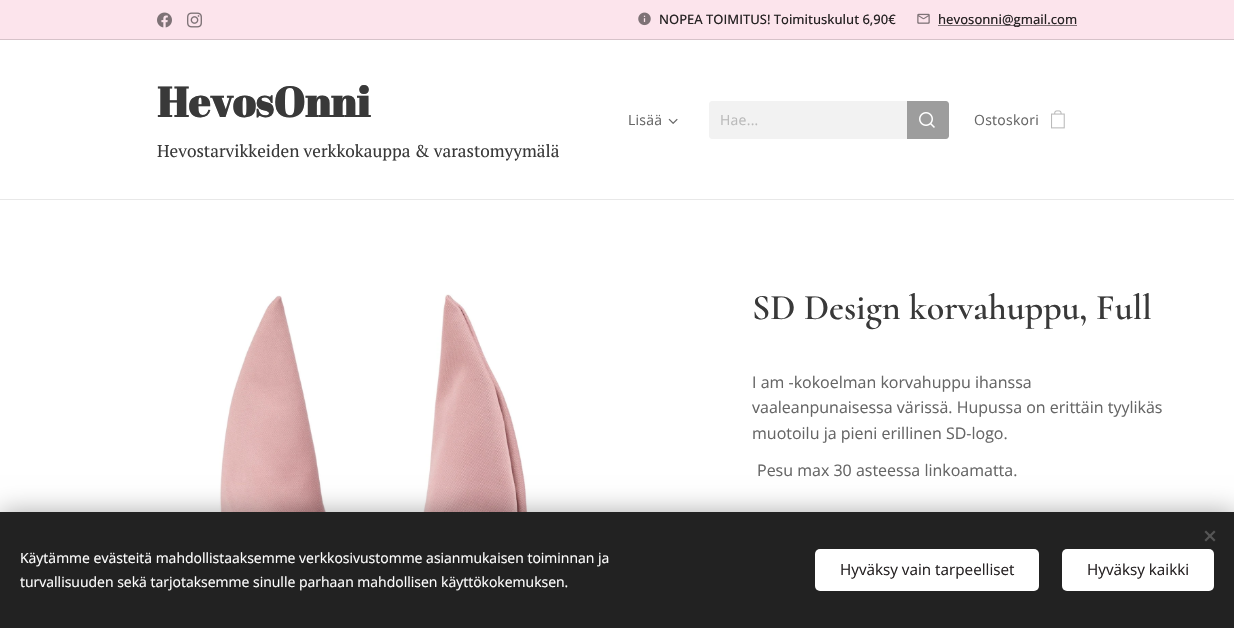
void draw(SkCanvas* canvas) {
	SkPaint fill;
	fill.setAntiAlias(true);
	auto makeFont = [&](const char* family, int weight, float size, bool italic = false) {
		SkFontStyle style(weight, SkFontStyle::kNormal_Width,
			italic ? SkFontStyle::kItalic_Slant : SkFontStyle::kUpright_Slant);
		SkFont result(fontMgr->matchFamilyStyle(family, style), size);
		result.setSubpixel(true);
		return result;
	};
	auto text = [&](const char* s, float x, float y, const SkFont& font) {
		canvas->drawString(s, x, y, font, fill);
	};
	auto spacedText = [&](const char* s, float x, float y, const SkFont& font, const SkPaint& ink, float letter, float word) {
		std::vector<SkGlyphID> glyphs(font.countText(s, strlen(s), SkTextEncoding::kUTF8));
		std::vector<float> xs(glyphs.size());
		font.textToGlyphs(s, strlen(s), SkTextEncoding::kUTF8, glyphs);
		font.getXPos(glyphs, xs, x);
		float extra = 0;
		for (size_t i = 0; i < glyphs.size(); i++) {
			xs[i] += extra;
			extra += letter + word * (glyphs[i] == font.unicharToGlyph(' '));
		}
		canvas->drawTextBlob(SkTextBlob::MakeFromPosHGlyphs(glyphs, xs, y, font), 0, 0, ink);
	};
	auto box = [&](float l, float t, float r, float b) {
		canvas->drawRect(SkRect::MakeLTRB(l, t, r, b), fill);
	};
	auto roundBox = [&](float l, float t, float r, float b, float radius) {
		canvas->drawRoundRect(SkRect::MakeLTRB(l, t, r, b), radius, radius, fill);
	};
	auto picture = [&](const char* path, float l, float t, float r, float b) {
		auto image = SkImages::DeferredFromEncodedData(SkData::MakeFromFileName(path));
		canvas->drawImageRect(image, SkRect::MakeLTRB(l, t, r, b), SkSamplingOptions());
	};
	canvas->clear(0xFFFFFFFF);
	fill.setColor(0xFFFCE4EC);
	box(0, 0, 1234, 39);
	picture("image0.png", 157, 12, 172, 28);
	picture("image1.png", 187, 12, 202, 28);
	picture("image2.png", 638, 12, 651, 26);
	picture("image3.png", 917, 13, 930, 24);
	fill.setColor(0xFF7E7276);
	box(938, 25, 1077, 26);
	fill.setColor(0xFFD6C2C9);
	box(0, 39, 1234, 40);
	picture("image4.png", 668, 118, 678, 124);
	fill.setColor(0xFFF2F2F2);
	canvas->drawPath(SkPathBuilder().moveTo(712, 101).lineTo(907, 101).lineTo(907, 139).lineTo(712, 139).cubicTo(710.5f, 139, 709, 137.5f, 709, 136).lineTo(709, 104).cubicTo(709, 102.5f, 710.5f, 101, 712, 101).close().detach(), fill);
	fill.setColor(0xFF9D9D9D);
	canvas->drawPath(SkPathBuilder().moveTo(907, 101).lineTo(946, 101).cubicTo(947.5f, 101, 949, 102.5f, 949, 104).lineTo(949, 136).cubicTo(949, 137.5f, 947.5f, 139, 946, 139).lineTo(907, 139).close().detach(), fill);
	picture("image5.png", 919, 112, 935, 128);
	picture("image6.png", 1051, 110, 1065, 129);
	fill.setColor(0xFFE8E8E8);
	box(0, 199, 1234, 200);
	picture("image7.png", 201, 294, 540, 512);
	fill.setColor(0x54000000);
	fill.setMaskFilter(SkMaskFilter::MakeBlur(kNormal_SkBlurStyle, 12.5f));
	canvas->drawRect(SkRect::MakeLTRB(0, 512, 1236, 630), fill);
	fill.setMaskFilter(nullptr);
	fill.setColor(0xFF222222);
	box(0, 512, 1234, 628);
	fill.setColor(0xFF555555);
	canvas->drawPath(SkPathBuilder().moveTo(1204.5f, 540).lineTo(1214, 530.5f).lineTo(1215.5f, 532).lineTo(1206, 541.5f).close().detach(), fill);
	canvas->drawPath(SkPathBuilder().moveTo(1206, 530.5f).lineTo(1215.5f, 540).lineTo(1214, 541.5f).lineTo(1204.5f, 532).close().detach(), fill);
	fill.setColor(0xFFFFFFFF);
	roundBox(815, 549, 1039, 591, 5);
	roundBox(1062, 549, 1214, 591, 5);
	auto font1 = makeFont("Open Sans", 500, 13);
	fill.setColor(0xFF262223);
	text("NOPEA TOIMITUS! Toimituskulut 6,90€", 659, 24, font1);
	text("hevosonni@gmail.com", 938, 24, font1);
	auto font2 = makeFont("Abril Fatface", 700, 42);
	fill.setColor(0xFF393939);
	text("HevosOnni", 157, 117, font2);
	auto font3 = makeFont("PT Serif", 400, 17.2f);
	text("Hevostarvikkeiden verkkokauppa & varastomyymälä", 157, 157, font3);
	auto font4 = makeFont("Open Sans", 400, 14);
	fill.setColor(0xFF666666);
	spacedText("Lisää", 628, 125, font4, fill, 0.25f, 0);
	fill.setColor(0xFFBABABA);
	spacedText("Hae...", 720, 125, font4, fill, 0.25f, 0);
	fill.setColor(0xFF666666);
	spacedText("Ostoskori", 974, 125, font4, fill, 0.25f, 0);
	auto font5 = makeFont("Cormorant", 600, 36);
	fill.setColor(0xFF393939);
	text("SD Design korvahuppu, Full", 752, 319, font5);
	auto font6 = makeFont("Open Sans", 400, 16);
	fill.setColor(0xFF666666);
	text("I am -kokoelman korvahuppu ihanssa", 752, 388, font6);
	text("vaaleanpunaisessa värissä. Hupussa on erittäin tyylikäs", 752, 413, font6);
	text("muotoilu ja pieni erillinen SD-logo.", 752, 439, font6);
	text("Pesu max 30 asteessa linkoamatta.", 757, 476, font6);
	fill.setColor(0xFFFFFFFF);
	text("Käytämme evästeitä mahdollistaaksemme verkkosivustomme asianmukaisen toiminnan ja", 20, 563, font4);
	text("turvallisuuden sekä tarjotaksemme sinulle parhaan mahdollisen käyttökokemuksen.", 20, 587, font4);
	auto font7 = makeFont("Open Sans", 400, 15.25f);
	fill.setColor(0xFF262223);
	text("Hyväksy vain tarpeelliset", 840, 575, font7);
	text("Hyväksy kaikki", 1087, 575, font7);
}
